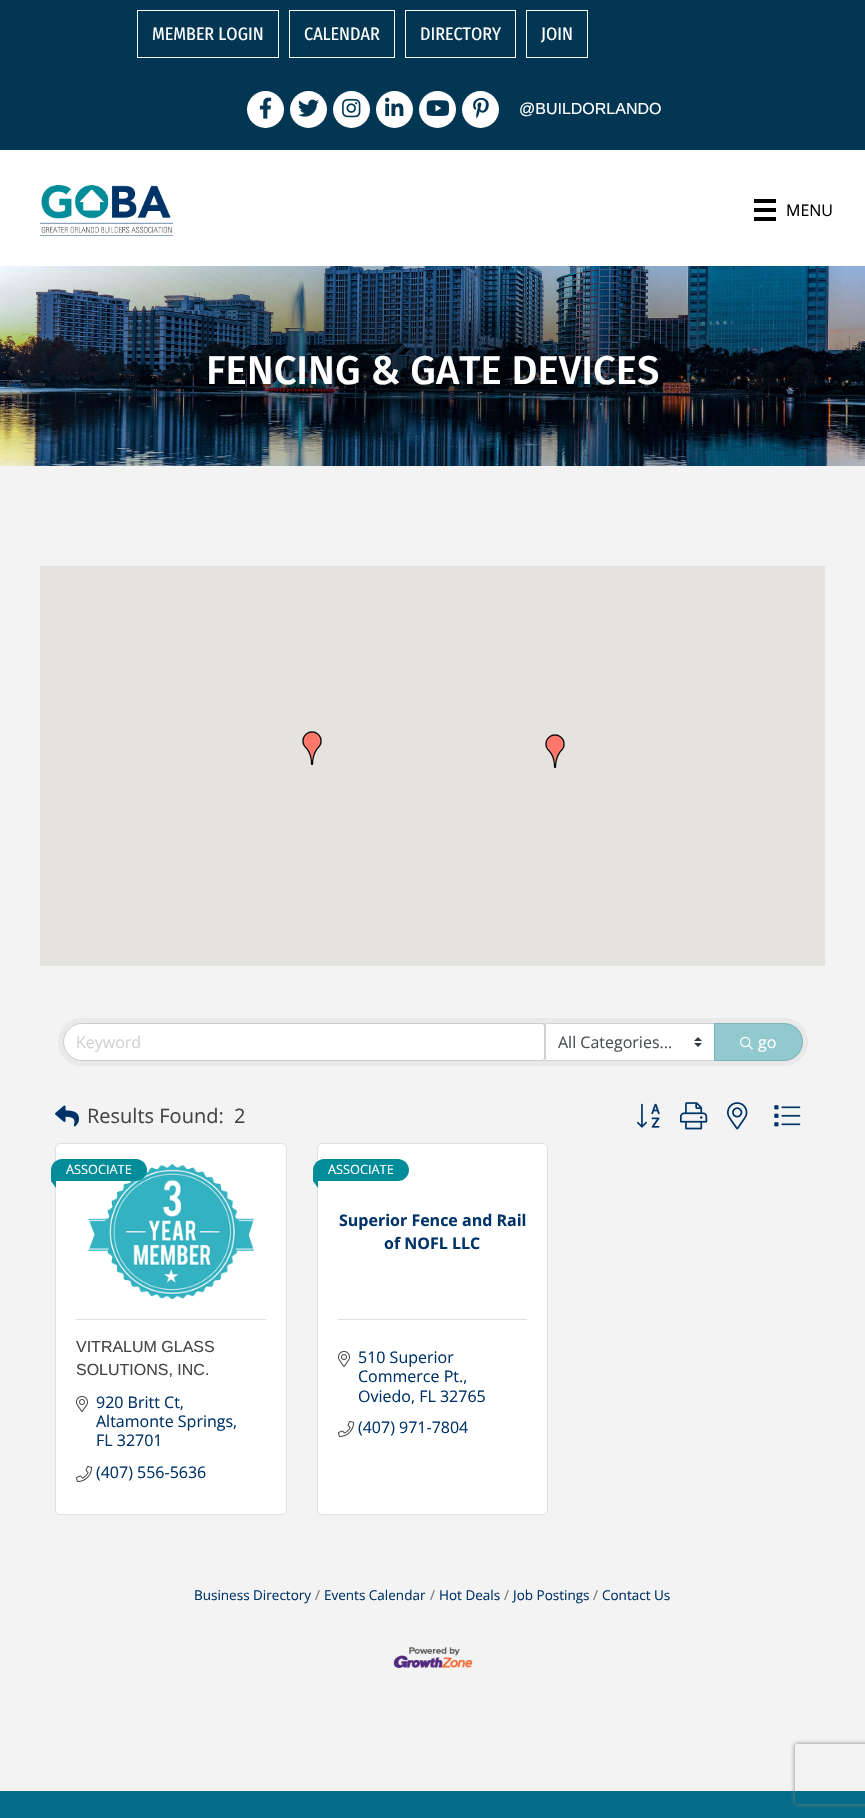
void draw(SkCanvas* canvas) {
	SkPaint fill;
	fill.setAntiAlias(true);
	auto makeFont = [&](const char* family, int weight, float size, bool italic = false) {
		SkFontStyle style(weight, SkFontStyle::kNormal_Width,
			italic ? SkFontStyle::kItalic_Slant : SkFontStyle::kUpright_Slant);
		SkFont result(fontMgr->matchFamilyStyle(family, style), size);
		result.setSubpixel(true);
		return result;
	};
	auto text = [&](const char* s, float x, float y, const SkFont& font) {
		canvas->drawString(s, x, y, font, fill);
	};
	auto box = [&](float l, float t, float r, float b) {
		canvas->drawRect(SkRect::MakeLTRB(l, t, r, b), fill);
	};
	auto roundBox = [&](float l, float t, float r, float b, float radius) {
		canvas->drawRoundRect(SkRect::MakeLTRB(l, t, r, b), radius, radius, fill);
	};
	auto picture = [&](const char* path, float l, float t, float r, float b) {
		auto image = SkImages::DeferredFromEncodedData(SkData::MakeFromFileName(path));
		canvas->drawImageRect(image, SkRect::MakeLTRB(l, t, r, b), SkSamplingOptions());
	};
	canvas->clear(0xFFFFFFFF);
	fill.setColor(0xFF023653);
	box(0, 0, 865, 150);
	fill.setStyle(SkPaint::kStroke_Style);
	fill.setStrokeWidth(1);
	fill.setColor(0xFFFFFFFF);
	canvas->drawRect(SkRect::MakeLTRB(137.5f, 10.5f, 278.5f, 57.5f), fill);
	canvas->drawRect(SkRect::MakeLTRB(289.5f, 10.5f, 394.5f, 57.5f), fill);
	canvas->drawRect(SkRect::MakeLTRB(405.5f, 10.5f, 515.5f, 57.5f), fill);
	canvas->drawRect(SkRect::MakeLTRB(526.5f, 10.5f, 587.5f, 57.5f), fill);
	fill.setStyle(SkPaint::kFill_Style);
	canvas->drawCircle(265.5f, 109.5f, 18.5f, fill);
	picture("image0.png", 259, 97, 272, 119);
	canvas->drawCircle(308.5f, 109.5f, 18.5f, fill);
	picture("image1.png", 298, 99, 319, 117);
	canvas->drawCircle(351.5f, 109.5f, 18.5f, fill);
	picture("image2.png", 342, 98, 361, 118);
	canvas->drawCircle(394.5f, 109.5f, 18.5f, fill);
	picture("image3.png", 385, 97, 404, 116);
	canvas->drawCircle(437.5f, 109.5f, 18.5f, fill);
	picture("image4.png", 426, 100, 449, 116);
	canvas->drawCircle(480.5f, 109.5f, 18.5f, fill);
	picture("image5.png", 473, 97, 489, 119);
	picture("image6.png", 40, 185, 173, 236);
	fill.setColor(0xFF000000);
	box(754, 199, 776, 203);
	box(754, 208, 776, 212);
	box(754, 217, 776, 221);
	fill.setColor(0xFFF3F3F3);
	box(0, 466, 865, 1791);
	picture("image7.png", 0, 266, 865, 466);
	fill.setColor(0xFFE5E3DF);
	box(40, 566, 825, 966);
	picture("image8.png", 302, 731, 322, 765);
	picture("image8.png", 545, 734, 565, 768);
	fill.setColor(0xFFE9E9E9);
	roundBox(58, 1018, 808, 1066, 24);
	fill.setColor(0xFFFFFFFF);
	canvas->drawPath(SkPathBuilder().moveTo(82, 1024).lineTo(542, 1024).cubicTo(543, 1024, 544, 1025, 544, 1026).lineTo(544, 1058).cubicTo(544, 1059, 543, 1060, 542, 1060).lineTo(82, 1060).cubicTo(72, 1060, 64, 1052, 64, 1042).cubicTo(64, 1032, 72, 1024, 82, 1024).close().detach(), fill);
	fill.setStyle(SkPaint::kStroke_Style);
	fill.setColor(0x1F000000);
	canvas->drawPath(SkPathBuilder().moveTo(82, 1023.5f).lineTo(542, 1023.5f).cubicTo(543.5f, 1023.5f, 544.5f, 1024.5f, 544.5f, 1026).lineTo(544.5f, 1058).cubicTo(544.5f, 1059.5f, 543.5f, 1060.5f, 542, 1060.5f).lineTo(82, 1060.5f).cubicTo(72, 1060.5f, 63.5f, 1052, 63.5f, 1042).cubicTo(63.5f, 1032, 72, 1023.5f, 82, 1023.5f).close().detach(), fill);
	fill.setStyle(SkPaint::kFill_Style);
	fill.setColor(0xFFFFFFFF);
	box(546, 1024, 714, 1060);
	picture("image9.png", 694, 1037, 702, 1047);
	fill.setStyle(SkPaint::kStroke_Style);
	fill.setColor(0xFFCED4DA);
	canvas->drawRect(SkRect::MakeLTRB(545.5f, 1023.5f, 714.5f, 1060.5f), fill);
	fill.setStyle(SkPaint::kFill_Style);
	fill.setColor(0xFF91C9CE);
	canvas->drawPath(SkPathBuilder().moveTo(714, 1023).lineTo(784, 1023).cubicTo(794.5f, 1023, 803, 1031.5f, 803, 1042).cubicTo(803, 1052.5f, 794.5f, 1061, 784, 1061).lineTo(714, 1061).close().detach(), fill);
	fill.setStyle(SkPaint::kStroke_Style);
	fill.setColor(0x1F000000);
	canvas->drawPath(SkPathBuilder().moveTo(714.5f, 1023.5f).lineTo(784, 1023.5f).cubicTo(794, 1023.5f, 802.5f, 1032, 802.5f, 1042).cubicTo(802.5f, 1052, 794, 1060.5f, 784, 1060.5f).lineTo(714.5f, 1060.5f).close().detach(), fill);
	picture("image10.png", 740, 1036, 753, 1050);
	picture("image11.png", 55, 1105, 79, 1127);
	picture("image12.png", 636, 1103, 660, 1128);
	picture("image13.png", 680, 1102, 708, 1130);
	picture("image14.png", 727, 1102, 748, 1130);
	picture("image15.png", 774, 1105, 801, 1127);
	fill.setStyle(SkPaint::kFill_Style);
	fill.setColor(0xFFFFFFFF);
	roundBox(55, 1143, 287, 1515, 5);
	fill.setStyle(SkPaint::kStroke_Style);
	fill.setColor(0x1F000000);
	canvas->drawRoundRect(SkRect::MakeLTRB(55.5f, 1143.5f, 286.5f, 1514.5f), 4.5f, 4.5f, fill);
	picture("image16.png", 88, 1164, 254, 1299);
	fill.setStyle(SkPaint::kFill_Style);
	fill.setColor(0xFF008C99);
	canvas->drawPath(SkPathBuilder().moveTo(62, 1159).lineTo(136, 1159).cubicTo(142, 1159, 147, 1164, 147, 1170).cubicTo(147, 1176, 142, 1181, 136, 1181).lineTo(51.5f, 1181).cubicTo(51, 1181, 51, 1181, 51, 1180.5f).lineTo(51, 1170).cubicTo(51, 1164, 56, 1159, 62, 1159).close().detach(), fill);
	canvas->drawPath(SkPathBuilder().moveTo(56, 1174).lineTo(56, 1188).lineTo(51, 1181).close().detach(), fill);
	fill.setColor(0xFFDFDFDF);
	box(76, 1319, 266, 1320);
	picture("image17.png", 76, 1396, 88, 1412);
	picture("image18.png", 76, 1466, 92, 1482);
	fill.setColor(0xFFFFFFFF);
	roundBox(317, 1143, 548, 1515, 5);
	fill.setStyle(SkPaint::kStroke_Style);
	fill.setColor(0x1F000000);
	canvas->drawRoundRect(SkRect::MakeLTRB(317.5f, 1143.5f, 547.5f, 1514.5f), 4.5f, 4.5f, fill);
	fill.setStyle(SkPaint::kFill_Style);
	fill.setColor(0xFF008C99);
	canvas->drawPath(SkPathBuilder().moveTo(324, 1159).lineTo(398, 1159).cubicTo(404, 1159, 409, 1164, 409, 1170).cubicTo(409, 1176, 404, 1181, 398, 1181).lineTo(313.5f, 1181).cubicTo(313, 1181, 313, 1181, 313, 1180.5f).lineTo(313, 1170).cubicTo(313, 1164, 318, 1159, 324, 1159).close().detach(), fill);
	canvas->drawPath(SkPathBuilder().moveTo(318, 1174).lineTo(318, 1188).lineTo(313, 1181).close().detach(), fill);
	fill.setColor(0xFFDFDFDF);
	box(338, 1319, 527, 1320);
	picture("image17.png", 338, 1351, 350, 1367);
	picture("image18.png", 338, 1421, 354, 1437);
	picture("image19.png", 393, 1647, 473, 1668);
	fill.setColor(0xFF056C89);
	box(0, 1791, 865, 1818);
	canvas->save();
	canvas->clipPath(SkPathBuilder(SkPathFillType::kEvenOdd).moveTo(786, 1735).lineTo(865, 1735).lineTo(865, 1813).lineTo(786, 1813).close().moveTo(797, 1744).lineTo(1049, 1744).cubicTo(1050, 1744, 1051, 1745, 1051, 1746).lineTo(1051, 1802).cubicTo(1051, 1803, 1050, 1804, 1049, 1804).lineTo(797, 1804).cubicTo(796, 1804, 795, 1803, 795, 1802).lineTo(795, 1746).cubicTo(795, 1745, 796, 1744, 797, 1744).close().detach(), true);
	fill.setColor(0xFF808080);
	fill.setMaskFilter(SkMaskFilter::MakeBlur(kNormal_SkBlurStyle, 2.5f));
	canvas->drawRoundRect(SkRect::MakeLTRB(795, 1744, 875, 1804), 2, 2, fill);
	fill.setMaskFilter(nullptr);
	canvas->restore();
	auto font1 = makeFont("Fira Sans Condensed", 400, 18);
	fill.setColor(0xFFFFFFFF);
	text("MEMBER LOGIN", 152, 40, font1);
	text("CALENDAR", 304, 40, font1);
	text("DIRECTORY", 420, 40, font1);
	text("JOIN", 541, 40, font1);
	auto font2 = makeFont("Liberation Sans", 400, 16);
	text("@BUILDORLANDO", 519, 114, font2);
	auto font3 = makeFont("Open Sans", 400, 16);
	fill.setColor(0xFF000000);
	text("MENU", 786, 216, font3);
	auto font4 = makeFont("Fira Sans", 500, 40);
	fill.setColor(0xFFFFFFFF);
	text("FENCING & GATE DEVICES", 206, 384, font4);
	fill.setColor(0xFFD2D2D2);
	text("Keyword", 76, 1048, font3);
	fill.setColor(0xFF495057);
	text("All Categories...", 558, 1048, font3);
	fill.setColor(0xFFFFFFFF);
	text("go", 758, 1048, font3);
	auto font5 = makeFont("Open Sans", 400, 20);
	fill.setColor(0xFF444444);
	text("Results Found:", 87, 1123, font5);
	text("2", 234, 1123, font5);
	auto font6 = makeFont("Open Sans", 400, 12.75f);
	fill.setColor(0xFFFFFFFF);
	text("ASSOCIATE", 66, 1174, font6);
	fill.setColor(0xFF444444);
	text("VITRALUM GLASS", 76, 1352, font2);
	text("SOLUTIONS, INC.", 76, 1375, font2);
	fill.setColor(0xFF003368);
	text("920 Britt Ct,", 96, 1408, font3);
	text("Altamonte Springs,", 96, 1427, font3);
	text("FL 32701", 96, 1446, font3);
	text("(407) 556-5636", 96, 1478, font3);
	fill.setColor(0xFFFFFFFF);
	text("ASSOCIATE", 328, 1174, font6);
	auto font7 = makeFont("Open Sans", 700, 16);
	fill.setColor(0xFF003368);
	text("Superior Fence and Rail", 339, 1226, font7);
	text("of NOFL LLC", 384, 1249, font7);
	text("510 Superior", 358, 1363, font3);
	text("Commerce Pt.,", 358, 1382, font3);
	text("Oviedo, FL 32765", 358, 1402, font3);
	text("(407) 971-7804", 358, 1433, font3);
	auto font8 = makeFont("Open Sans", 400, 13.5f);
	text("Business Directory", 194, 1600, font8);
	fill.setColor(0xFF6C757D);
	text("/", 315, 1600, font8);
	fill.setColor(0xFF003368);
	text("Events Calendar", 324, 1600, font8);
	fill.setColor(0xFF6C757D);
	text("/", 430, 1600, font8);
	fill.setColor(0xFF003368);
	text("Hot Deals", 439, 1600, font8);
	fill.setColor(0xFF6C757D);
	text("/", 504, 1600, font8);
	fill.setColor(0xFF003368);
	text("Job Postings", 513, 1600, font8);
	fill.setColor(0xFF6C757D);
	text("/", 593, 1600, font8);
	fill.setColor(0xFF003368);
	text("Contact Us", 602, 1600, font8);
}
